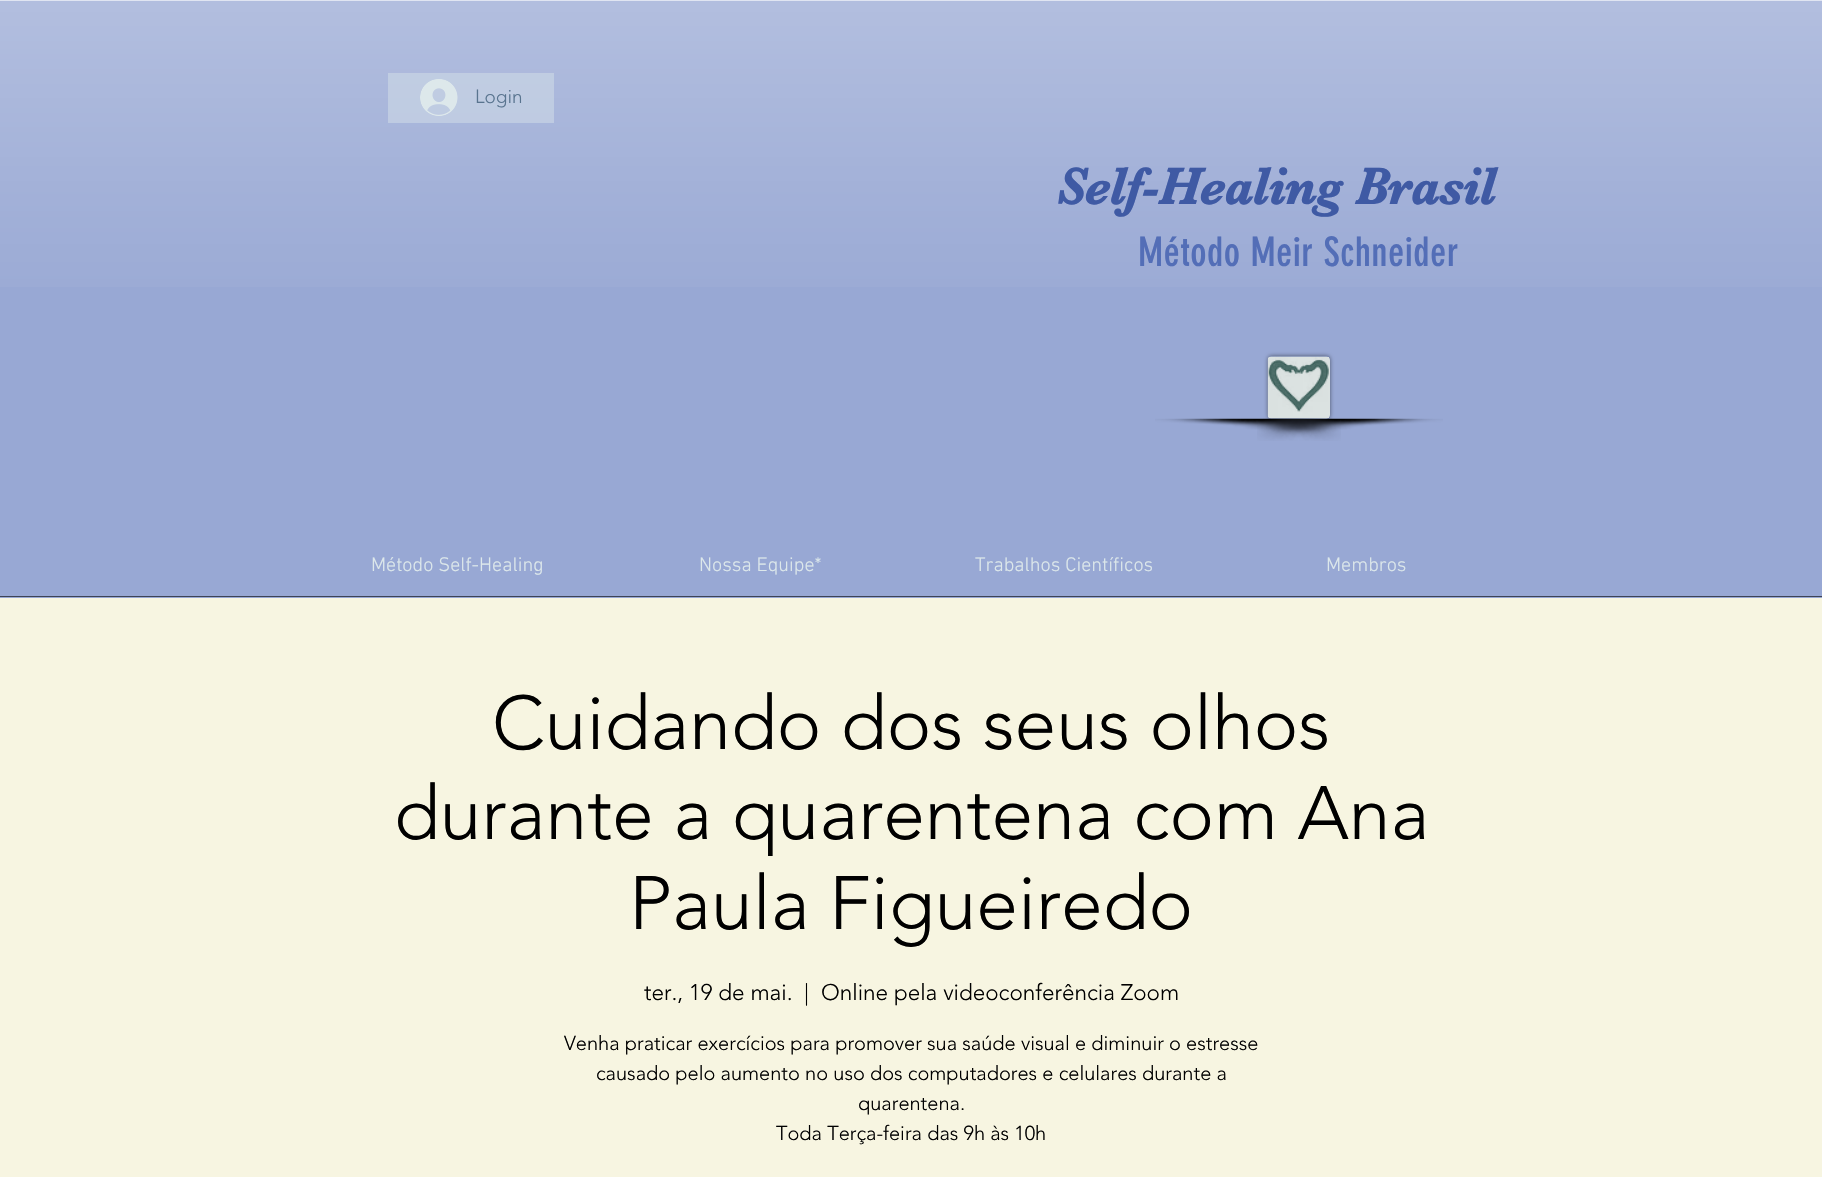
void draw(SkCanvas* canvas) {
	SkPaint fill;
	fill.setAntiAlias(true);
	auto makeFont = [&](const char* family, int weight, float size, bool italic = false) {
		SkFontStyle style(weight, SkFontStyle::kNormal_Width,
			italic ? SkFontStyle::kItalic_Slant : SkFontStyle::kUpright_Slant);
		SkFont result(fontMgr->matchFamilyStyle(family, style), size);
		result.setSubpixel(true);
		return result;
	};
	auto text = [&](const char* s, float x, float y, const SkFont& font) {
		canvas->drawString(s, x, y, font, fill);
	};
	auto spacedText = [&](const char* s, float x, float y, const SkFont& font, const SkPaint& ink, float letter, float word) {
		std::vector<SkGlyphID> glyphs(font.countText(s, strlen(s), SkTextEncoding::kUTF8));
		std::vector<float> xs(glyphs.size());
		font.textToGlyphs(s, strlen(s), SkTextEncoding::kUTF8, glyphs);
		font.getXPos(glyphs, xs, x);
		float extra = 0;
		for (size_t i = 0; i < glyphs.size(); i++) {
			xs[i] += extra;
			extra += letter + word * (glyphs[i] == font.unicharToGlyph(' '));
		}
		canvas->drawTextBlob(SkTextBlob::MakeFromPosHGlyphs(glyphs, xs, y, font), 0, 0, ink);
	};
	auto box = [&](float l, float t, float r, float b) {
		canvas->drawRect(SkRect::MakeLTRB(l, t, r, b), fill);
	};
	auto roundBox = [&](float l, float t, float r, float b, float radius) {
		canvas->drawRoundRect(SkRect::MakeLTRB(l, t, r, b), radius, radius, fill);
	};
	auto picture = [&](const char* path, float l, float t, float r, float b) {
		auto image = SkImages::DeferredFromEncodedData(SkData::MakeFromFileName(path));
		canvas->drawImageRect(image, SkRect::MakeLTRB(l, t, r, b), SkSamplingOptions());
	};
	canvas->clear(0xFFFFFFFF);
	canvas->save();
	canvas->clipPath(SkPathBuilder(SkPathFillType::kEvenOdd).moveTo(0, 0).lineTo(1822, 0).lineTo(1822, 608).lineTo(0, 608).close().moveTo(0, 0).lineTo(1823, 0).lineTo(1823, 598).lineTo(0, 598).close().detach(), true);
	fill.setColor(0x99000000);
	fill.setMaskFilter(SkMaskFilter::MakeBlur(kNormal_SkBlurStyle, 3));
	canvas->drawRect(SkRect::MakeLTRB(0, 0, 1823, 598), fill);
	fill.setMaskFilter(nullptr);
	canvas->restore();
	fill.setColor(0x99536EB7);
	box(0, 1, 1822, 598);
	picture("image0.png", 0, 1, 1822, 287);
	fill.setColor(0xFF3D4355);
	box(0, 596, 1822, 597);
	fill.setColor(0xFFE0E5F2);
	box(0, 0, 1822, 1);
	fill.setColor(0x69DDE8EB);
	box(388, 73, 554, 123);
	picture("image1.png", 420, 79, 458, 116);
	fill.setColor(0x80000000);
	fill.setMaskFilter(SkMaskFilter::MakeBlur(kNormal_SkBlurStyle, 2));
	canvas->drawRoundRect(SkRect::MakeLTRB(1268, 356, 1330, 419), 4, 4, fill);
	fill.setMaskFilter(nullptr);
	fill.setColor(0x6E536EB7);
	roundBox(1268, 356, 1330, 419, 4);
	picture("image4.png", 1257, 418, 1443, 441);
	picture("image2.png", 1267, 356, 1330, 419);
	picture("image3.png", 1155, 418, 1341, 441);
	fill.setColor(0xFFF7F5E1);
	box(0, 598, 1822, 1177);
	auto font1 = makeFont("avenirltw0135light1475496", 300, 19);
	fill.setColor(0xFF59748F);
	text("Login", 475, 103, font1);
	auto font2 = makeFont("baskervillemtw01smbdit", 700, 52.5f);
	fill.setColor(0xFF3F5AA4);
	text("Self-Healing Brasil", 1056, 204, font2);
	auto font3 = makeFont("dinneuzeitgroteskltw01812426", 400, 40);
	fill.setColor(0xFF536EB7);
	spacedText("Método Meir Schneider", 1138, 266, font3, fill, 0.4f, 0);
	auto font4 = makeFont("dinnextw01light", 300, 20);
	fill.setColor(0xFFDDE8EB);
	text("Método Self-Healing", 371, 571, font4);
	text("Nossa Equipe*", 699, 571, font4);
	text("Trabalhos Científicos", 975, 571, font4);
	text("Membros", 1326, 571, font4);
	auto font5 = makeFont("avenirltw0135light1475496", 300, 75);
	fill.setColor(0xFF000000);
	text("Cuidando dos seus olhos", 492, 749, font5);
	text("durante a quarentena com Ana", 394, 839, font5);
	text("Paula Figueiredo", 629, 929, font5);
	auto font6 = makeFont("avenirltw0135light1475496", 300, 22.5f);
	text("ter., 19 de mai.", 644, 1000, font6);
	text("|", 804, 1000, font6);
	text("Online pela videoconferência Zoom", 821, 1000, font6);
	auto font7 = makeFont("avenirltw0135light1475496", 300, 20);
	text("Venha praticar exercícios para promover sua saúde visual e diminuir o estresse", 564, 1050, font7);
	text("causado pelo aumento no uso dos computadores e celulares durante a", 596, 1080, font7);
	text("quarentena.", 858, 1110, font7);
	text("Toda Terça-feira das 9h às 10h", 776, 1140, font7);
}
